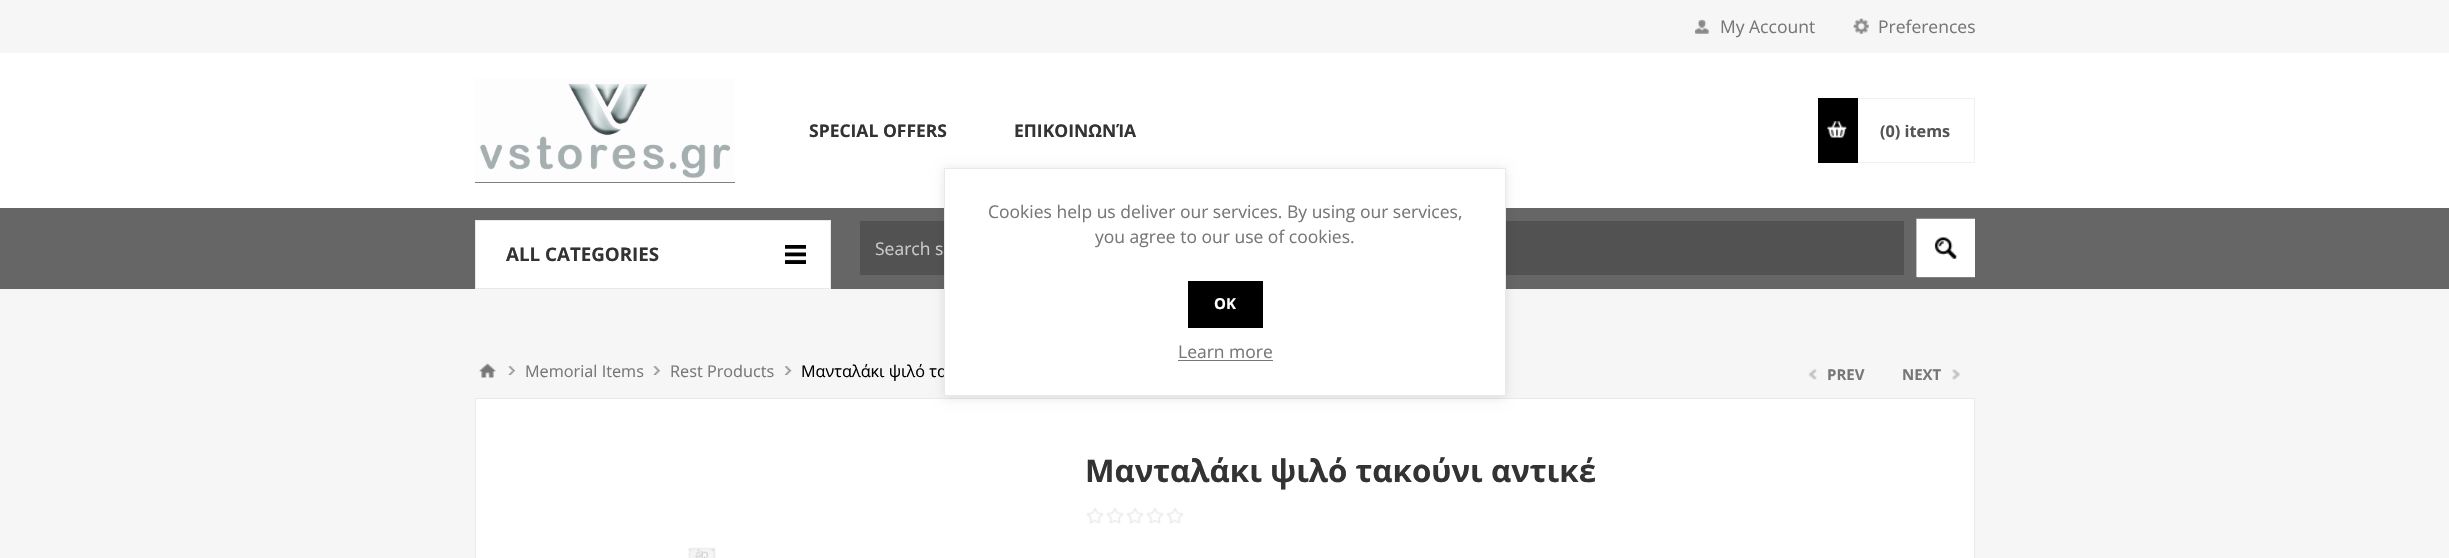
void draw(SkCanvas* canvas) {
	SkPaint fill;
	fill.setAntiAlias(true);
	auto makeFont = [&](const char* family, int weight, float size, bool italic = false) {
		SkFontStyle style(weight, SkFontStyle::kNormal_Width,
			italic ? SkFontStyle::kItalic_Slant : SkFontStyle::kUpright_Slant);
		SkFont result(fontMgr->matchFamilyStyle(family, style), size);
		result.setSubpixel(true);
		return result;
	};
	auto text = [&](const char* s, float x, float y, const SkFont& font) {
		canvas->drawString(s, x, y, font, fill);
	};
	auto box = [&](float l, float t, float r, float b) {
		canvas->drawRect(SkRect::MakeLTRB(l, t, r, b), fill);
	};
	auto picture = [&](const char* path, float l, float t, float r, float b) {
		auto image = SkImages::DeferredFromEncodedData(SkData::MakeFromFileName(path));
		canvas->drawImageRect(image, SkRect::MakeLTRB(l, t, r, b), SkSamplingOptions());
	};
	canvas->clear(0xFFF6F6F6);
	picture("image0.png", 1695, 19, 1709, 34);
	picture("image1.png", 1853, 18, 1869, 34);
	fill.setColor(0xFFFFFFFF);
	box(0, 53, 2449, 208);
	fill.setColor(0xFF030303);
	box(475, 78, 735, 183);
	picture("image2.png", 475, 78, 735, 183);
	fill.setStyle(SkPaint::kStroke_Style);
	fill.setStrokeWidth(1);
	fill.setColor(0xFFF0F0F0);
	canvas->drawRect(SkRect::MakeLTRB(1856.5f, 98.5f, 1974.5f, 162.5f), fill);
	fill.setStyle(SkPaint::kFill_Style);
	fill.setColor(0xFF000000);
	box(1818, 98, 1858, 163);
	picture("image3.png", 1827, 121, 1847, 138);
	fill.setColor(0xFF666666);
	box(0, 208, 2449, 289);
	fill.setColor(0xFFFFFFFF);
	canvas->drawRect(SkRect::MakeLTRB(475.5f, 220.5f, 830.5f, 288.5f), fill);
	fill.setStyle(SkPaint::kStroke_Style);
	fill.setColor(0xFFE9E9E9);
	canvas->drawRect(SkRect::MakeLTRB(475.5f, 220.5f, 830.5f, 288.5f), fill);
	fill.setStyle(SkPaint::kFill_Style);
	fill.setColor(0xFF000000);
	box(785, 245, 806, 264);
	picture("image4.png", 785, 248, 806, 261);
	fill.setColor(0xFF525252);
	box(860, 221, 1904, 275);
	fill.setColor(0xFF000000);
	box(1916, 219, 1975, 278);
	picture("image5.png", 1916, 218, 1975, 278);
	picture("image6.png", 478, 363, 497, 378);
	picture("image7.png", 508, 366, 515, 375);
	picture("image7.png", 653, 366, 660, 375);
	picture("image8.png", 785, 366, 792, 375);
	picture("image9.png", 1808, 368, 1817, 380);
	picture("image10.png", 1952, 369, 1961, 380);
	fill.setColor(0xFFFFFFFF);
	canvas->drawRect(SkRect::MakeLTRB(475.5f, 398.5f, 1974.5f, 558.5f), fill);
	fill.setStyle(SkPaint::kStroke_Style);
	fill.setColor(0xFFE9E9E9);
	canvas->drawRect(SkRect::MakeLTRB(475.5f, 398.5f, 1974.5f, 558.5f), fill);
	picture("image11.png", 1086, 507, 1184, 524);
	picture("image12.png", 688, 547, 716, 558);
	fill.setStyle(SkPaint::kFill_Style);
	fill.setColor(0x1A000000);
	fill.setMaskFilter(SkMaskFilter::MakeBlur(kNormal_SkBlurStyle, 5));
	canvas->drawRect(SkRect::MakeLTRB(944, 169, 1506, 398), fill);
	fill.setMaskFilter(nullptr);
	auto font1 = makeFont("Open Sans", 400, 17.5f);
	fill.setColor(0xFF777777);
	text("My Account", 1720, 33, font1);
	text("Preferences", 1878, 33, font1);
	auto font2 = makeFont("Open Sans", 700, 17.5f);
	fill.setColor(0xFF333333);
	text("SPECIAL OFFERS", 809, 137, font2);
	text("ΕΠΙΚΟΙΝΩΝΊΑ", 1014, 137, font2);
	auto font3 = makeFont("Open Sans", 700, 16.25f);
	fill.setColor(0xFF555555);
	text("(0) items", 1880, 137, font3);
	auto font4 = makeFont("Open Sans", 700, 18.75f);
	fill.setColor(0xFF333333);
	text("ALL CATEGORIES", 506, 261, font4);
	fill.setColor(0xFFCBCBCB);
	text("Search s", 875, 255, font1);
	auto font5 = makeFont("Open Sans", 400, 16.25f);
	fill.setColor(0xFF777777);
	text("Memorial Items", 525, 377, font5);
	text("Rest Products", 670, 377, font5);
	fill.setColor(0xFF000000);
	text("Μανταλάκι ψιλό τα", 801, 377, font5);
	auto font6 = makeFont("Open Sans", 700, 15);
	fill.setColor(0xFF777777);
	text("PREV", 1827, 380, font6);
	text("NEXT", 1902, 380, font6);
	auto font7 = makeFont("Open Sans", 700, 31.25f);
	fill.setColor(0xFF333333);
	text("Μανταλάκι ψιλό τακούνι αντικέ", 1085, 482, font7);
	fill.setColor(0xFFFFFFFF);
	canvas->drawRect(SkRect::MakeLTRB(944.5f, 168.5f, 1505.5f, 395.5f), fill);
	fill.setStyle(SkPaint::kStroke_Style);
	fill.setColor(0xFFE9E9E9);
	canvas->drawRect(SkRect::MakeLTRB(944.5f, 168.5f, 1505.5f, 395.5f), fill);
	fill.setStyle(SkPaint::kFill_Style);
	fill.setColor(0xFF777777);
	text("Cookies help us deliver our services. By using our services,", 988, 218, font1);
	text("you agree to our use of cookies.", 1095, 243, font1);
	fill.setColor(0xFF000000);
	box(1188, 281, 1263, 328);
	fill.setColor(0xFFFFFFFF);
	text("OK", 1214, 309, font6);
	fill.setColor(0xFF777777);
	text("Learn more", 1178, 358, font1);
	box(1178, 360, 1273, 361);
}
